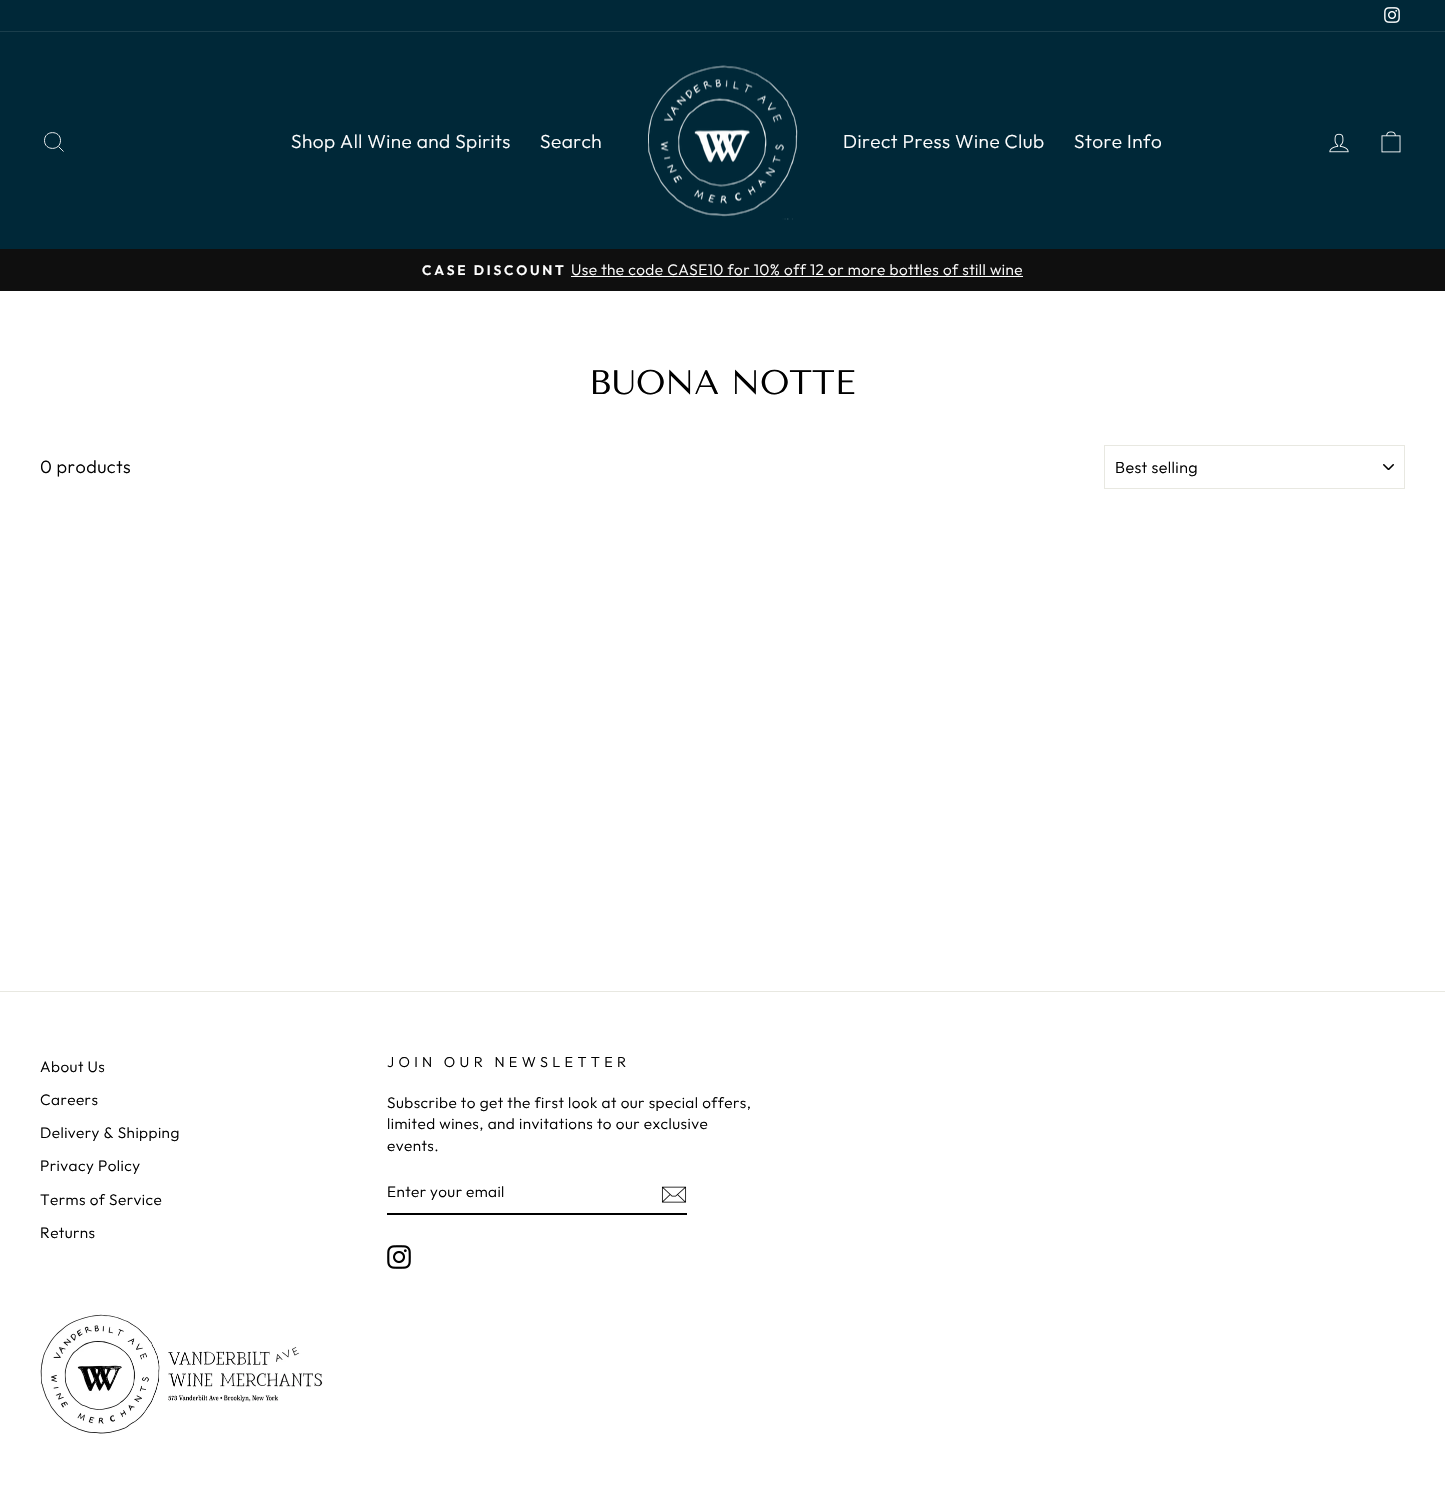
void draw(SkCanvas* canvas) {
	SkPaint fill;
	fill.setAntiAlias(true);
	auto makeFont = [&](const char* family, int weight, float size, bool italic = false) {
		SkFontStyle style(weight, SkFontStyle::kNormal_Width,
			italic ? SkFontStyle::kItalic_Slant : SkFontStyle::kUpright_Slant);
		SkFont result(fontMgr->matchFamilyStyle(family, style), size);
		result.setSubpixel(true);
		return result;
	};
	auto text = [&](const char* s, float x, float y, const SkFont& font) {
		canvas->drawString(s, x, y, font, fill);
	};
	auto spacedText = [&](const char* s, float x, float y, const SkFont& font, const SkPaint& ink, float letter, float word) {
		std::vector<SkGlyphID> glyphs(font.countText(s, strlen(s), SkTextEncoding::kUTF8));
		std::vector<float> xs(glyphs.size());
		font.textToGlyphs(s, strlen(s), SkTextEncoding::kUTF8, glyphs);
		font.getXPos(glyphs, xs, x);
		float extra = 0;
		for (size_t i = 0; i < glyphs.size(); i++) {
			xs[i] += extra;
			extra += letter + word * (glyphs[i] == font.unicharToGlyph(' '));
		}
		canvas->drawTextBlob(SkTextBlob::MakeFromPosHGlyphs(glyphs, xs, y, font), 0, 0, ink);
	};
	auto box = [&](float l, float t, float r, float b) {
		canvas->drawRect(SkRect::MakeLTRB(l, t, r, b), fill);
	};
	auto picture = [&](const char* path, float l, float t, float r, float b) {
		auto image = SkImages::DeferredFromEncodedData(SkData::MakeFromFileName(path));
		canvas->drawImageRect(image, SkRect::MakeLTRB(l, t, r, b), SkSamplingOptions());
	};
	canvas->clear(0xFFFFFFFF);
	fill.setColor(0xFF002838);
	box(0, 0, 1445, 31);
	picture("image0.png", 1384, 7, 1400, 23);
	box(0, 32, 1445, 249);
	fill.setColor(0xFF1A3E4C);
	box(0, 31, 1445, 32);
	fill.setStyle(SkPaint::kStroke_Style);
	fill.setStrokeWidth(0.9f);
	fill.setColor(0xFFFFFFFF);
	canvas->drawPath(SkPathBuilder().moveTo(60.5f, 140.5f).cubicTo(60.5f, 151, 44.5f, 151, 44.5f, 140.5f).cubicTo(44.5f, 130, 60.5f, 130, 60.5f, 140.5f).close().moveTo(63.5f, 151.5f).lineTo(58.5f, 146.5f).detach(), fill);
	picture("image1.png", 648, 65, 798, 220);
	picture("image2.png", 1329, 133, 1349, 153);
	picture("image3.png", 1381, 131, 1401, 153);
	fill.setStyle(SkPaint::kFill_Style);
	fill.setColor(0xFF0F0F0F);
	box(0, 249, 1445, 291);
	fill.setColor(0xFFFFFFFF);
	box(571, 276, 1023, 277);
	picture("image4.png", 1383, 464, 1394, 470);
	fill.setStyle(SkPaint::kStroke_Style);
	fill.setStrokeWidth(1);
	fill.setColor(0xFFE8E8E1);
	canvas->drawRect(SkRect::MakeLTRB(1104.5f, 445.5f, 1404.5f, 488.5f), fill);
	fill.setStyle(SkPaint::kFill_Style);
	box(0, 991, 1445, 992);
	fill.setColor(0xFF000000);
	box(387, 1213, 687, 1215);
	picture("image5.png", 661, 1186, 687, 1203);
	picture("image6.png", 387, 1245, 411, 1269);
	picture("image7.png", 40, 1314, 323, 1434);
	auto font1 = makeFont("Outfit", 300, 19);
	fill.setColor(0xFFFFFFFF);
	spacedText("Shop All Wine and Spirits", 291, 148, font1, fill, 0.45f, 0);
	spacedText("Search", 540, 148, font1, fill, 0.45f, 0);
	spacedText("Direct Press Wine Club", 843, 148, font1, fill, 0.45f, 0);
	spacedText("Store Info", 1074, 148, font1, fill, 0.45f, 0);
	auto font2 = makeFont("Outfit", 600, 13.75f);
	spacedText("CASE DISCOUNT", 422, 275, font2, fill, 2.75f, 0);
	auto font3 = makeFont("Outfit", 300, 15.3f);
	spacedText("Use the code CASE10 for 10% off 12 or more bottles of still wine", 571, 275, font3, fill, 0.45f, 0);
	auto font4 = makeFont("Tenor Sans", 400, 34);
	fill.setColor(0xFF000000);
	text("BUONA NOTTE", 589, 394, font4);
	auto font5 = makeFont("Outfit", 300, 18);
	spacedText("0 products", 40, 473, font5, fill, 0.45f, 0);
	auto font6 = makeFont("Outfit", 300, 16);
	spacedText("Best selling", 1115, 473, font6, fill, 0.4f, 0);
	spacedText("About Us", 40, 1072, font3, fill, 0.45f, 0);
	spacedText("Careers", 40, 1105, font3, fill, 0.45f, 0);
	spacedText("Delivery & Shipping", 40, 1138, font3, fill, 0.45f, 0);
	spacedText("Privacy Policy", 40, 1171, font3, fill, 0.45f, 0);
	spacedText("Terms of Service", 40, 1205, font3, fill, 0.45f, 0);
	spacedText("Returns", 40, 1238, font3, fill, 0.45f, 0);
	auto font7 = makeFont("Outfit", 300, 14.4f);
	spacedText("JOIN OUR NEWSLETTER", 387, 1067, font7, fill, 4.3f, 0);
	spacedText("Subscribe to get the first look at our special offers,", 387, 1108, font3, fill, 0.45f, 0);
	spacedText("limited wines, and invitations to our exclusive", 387, 1129, font3, fill, 0.45f, 0);
	spacedText("events.", 387, 1151, font3, fill, 0.45f, 0);
	spacedText("Enter your email", 387, 1197, font3, fill, 0.4f, 0);
}
